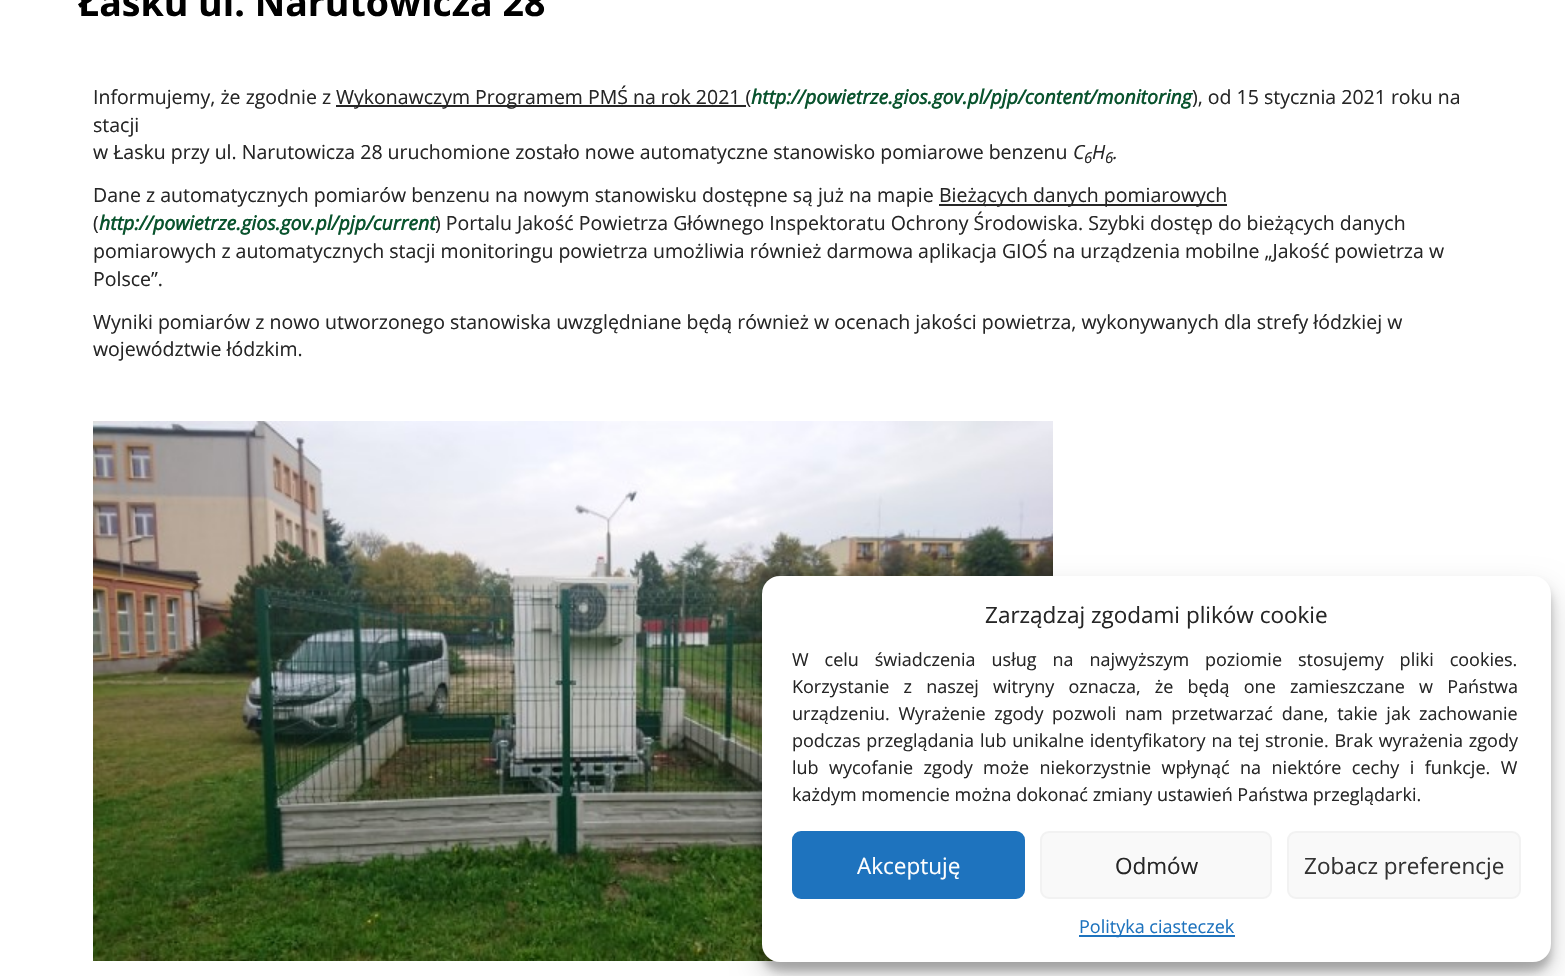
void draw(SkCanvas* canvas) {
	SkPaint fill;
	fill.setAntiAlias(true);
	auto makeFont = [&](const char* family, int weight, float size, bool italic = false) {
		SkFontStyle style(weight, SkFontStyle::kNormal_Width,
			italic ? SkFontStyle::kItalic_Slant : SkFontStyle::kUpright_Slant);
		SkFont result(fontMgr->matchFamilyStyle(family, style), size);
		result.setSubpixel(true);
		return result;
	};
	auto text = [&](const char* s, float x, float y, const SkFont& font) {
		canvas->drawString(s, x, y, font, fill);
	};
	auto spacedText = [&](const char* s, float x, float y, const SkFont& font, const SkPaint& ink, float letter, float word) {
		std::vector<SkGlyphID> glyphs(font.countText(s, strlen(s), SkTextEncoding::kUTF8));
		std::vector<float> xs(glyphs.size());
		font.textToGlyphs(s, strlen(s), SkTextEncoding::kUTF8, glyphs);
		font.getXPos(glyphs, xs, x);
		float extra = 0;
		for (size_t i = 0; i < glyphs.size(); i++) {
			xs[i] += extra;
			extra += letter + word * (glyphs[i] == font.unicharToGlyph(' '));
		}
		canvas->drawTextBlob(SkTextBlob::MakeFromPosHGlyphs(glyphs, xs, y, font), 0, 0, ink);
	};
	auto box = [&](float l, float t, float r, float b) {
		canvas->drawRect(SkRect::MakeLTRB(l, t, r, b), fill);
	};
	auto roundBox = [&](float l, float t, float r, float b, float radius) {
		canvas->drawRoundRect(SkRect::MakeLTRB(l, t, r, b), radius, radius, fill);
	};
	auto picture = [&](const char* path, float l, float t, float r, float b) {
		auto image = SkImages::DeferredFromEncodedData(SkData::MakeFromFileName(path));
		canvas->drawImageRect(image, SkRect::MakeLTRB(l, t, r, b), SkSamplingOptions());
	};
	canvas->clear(0xFFFFFFFF);
	fill.setColor(0xFF262626);
	box(336, 105, 746, 107);
	box(939, 204, 1227, 206);
	picture("image0.png", 93, 421, 1053, 961);
	fill.setColor(0x3B000000);
	fill.setMaskFilter(SkMaskFilter::MakeBlur(kNormal_SkBlurStyle, 4.5f));
	canvas->drawRoundRect(SkRect::MakeLTRB(762, 585, 1551, 971), 18, 18, fill);
	fill.setMaskFilter(nullptr);
	fill.setColor(0x30000000);
	fill.setMaskFilter(SkMaskFilter::MakeBlur(kNormal_SkBlurStyle, 15));
	canvas->drawRoundRect(SkRect::MakeLTRB(762, 591, 1551, 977), 18, 18, fill);
	fill.setMaskFilter(nullptr);
	fill.setColor(0xFFFFFFFF);
	roundBox(762, 576, 1551, 962, 18);
	fill.setColor(0xFF1E73BE);
	canvas->drawRoundRect(SkRect::MakeLTRB(793, 832, 1024, 898), 8, 8, fill);
	fill.setStyle(SkPaint::kStroke_Style);
	fill.setStrokeWidth(2);
	canvas->drawRoundRect(SkRect::MakeLTRB(793, 832, 1024, 898), 8, 8, fill);
	fill.setStyle(SkPaint::kFill_Style);
	fill.setColor(0xFFF9F9F9);
	canvas->drawRoundRect(SkRect::MakeLTRB(1041, 832, 1271, 898), 8, 8, fill);
	fill.setStyle(SkPaint::kStroke_Style);
	fill.setColor(0xFFF2F2F2);
	canvas->drawRoundRect(SkRect::MakeLTRB(1041, 832, 1271, 898), 8, 8, fill);
	fill.setStyle(SkPaint::kFill_Style);
	fill.setColor(0xFFF9F9F9);
	canvas->drawRoundRect(SkRect::MakeLTRB(1288, 832, 1520, 898), 8, 8, fill);
	fill.setStyle(SkPaint::kStroke_Style);
	fill.setColor(0xFFF2F2F2);
	canvas->drawRoundRect(SkRect::MakeLTRB(1288, 832, 1520, 898), 8, 8, fill);
	fill.setStyle(SkPaint::kFill_Style);
	fill.setColor(0xFF1E73BE);
	box(1079, 935, 1235, 937);
	auto font1 = makeFont("Open Sans", 700, 37.5f);
	fill.setColor(0xFF000000);
	text("Łasku ul. Narutowicza 28", 78, 16, font1);
	auto font2 = makeFont("Open Sans", 400, 19.5f);
	fill.setColor(0xFF262626);
	text("Informujemy, że zgodnie z", 93, 104, font2);
	text("Wykonawczym Programem PMŚ na rok 2021 (", 336, 104, font2);
	auto font3 = makeFont("Open Sans", 700, 19.5f, true);
	fill.setColor(0xFF09532D);
	text("http://powietrze.gios.gov.pl/pjp/content/monitoring", 751, 104, font3);
	fill.setColor(0xFF262626);
	text("), od 15 stycznia 2021 roku na", 1192, 104, font2);
	text("stacji", 93, 132, font2);
	text("w Łasku przy ul. Narutowicza 28 uruchomione zostało nowe automatyczne stanowisko pomiarowe benzenu", 93, 159, font2);
	auto font4 = makeFont("Open Sans", 400, 19.5f, true);
	text("C", 1073, 159, font4);
	auto font5 = makeFont("Open Sans", 400, 15, true);
	text("6", 1084, 163, font5);
	text("H", 1092, 159, font4);
	text(".", 1113, 159, font4);
	text("6", 1105, 163, font5);
	text("Dane z automatycznych pomiarów benzenu na nowym stanowisku dostępne są już na mapie", 93, 202, font2);
	text("Bieżących danych pomiarowych", 939, 202, font2);
	text("(", 93, 230, font2);
	fill.setColor(0xFF09532D);
	text("http://powietrze.gios.gov.pl/pjp/current", 99, 230, font3);
	fill.setColor(0xFF262626);
	text(") Portalu Jakość Powietrza Głównego Inspektoratu Ochrony Środowiska. Szybki dostęp do bieżących danych", 435, 230, font2);
	text("pomiarowych z automatycznych stacji monitoringu powietrza umożliwia również darmowa aplikacja GIOŚ na urządzenia mobilne „Jakość powietrza w", 93, 258, font2);
	text("Polsce”.", 93, 286, font2);
	text("Wyniki pomiarów z nowo utworzonego stanowiska uwzględniane będą również w ocenach jakości powietrza, wykonywanych dla strefy łódzkiej w", 93, 329, font2);
	text("województwie łódzkim.", 93, 356, font2);
	auto font6 = makeFont("Open Sans", 400, 22.5f);
	text("Zarządzaj zgodami plików cookie", 985, 623, font6);
	auto font7 = makeFont("Open Sans", 400, 18);
	spacedText("W celu świadczenia usług na najwyższym poziomie stosujemy pliki cookies.", 792, 666, font7, fill, 0, 11.25f);
	spacedText("Korzystanie z naszej witryny oznacza, że będą one zamieszczane w Państwa", 792, 693, font7, fill, 0, 9.5f);
	spacedText("urządzeniu. Wyrażenie zgody pozwoli nam przetwarzać dane, takie jak zachowanie", 792, 720, font7, fill, 0, 4);
	spacedText("podczas przeglądania lub unikalne identyfikatory na tej stronie. Brak wyrażenia zgody", 792, 747, font7, fill, 0, 1.1f);
	spacedText("lub wycofanie zgody może niekorzystnie wpłynąć na niektóre cechy i funkcje. W", 792, 774, font7, fill, 0, 5.75f);
	text("każdym momencie można dokonać zmiany ustawień Państwa przeglądarki.", 792, 801, font7);
	fill.setColor(0xFFFFFFFF);
	text("Akceptuję", 857, 874, font6);
	fill.setColor(0xFF262626);
	text("Odmów", 1115, 874, font6);
	fill.setColor(0xFF333333);
	text("Zobacz preferencje", 1304, 874, font6);
	fill.setColor(0xFF1E73BE);
	text("Polityka ciasteczek", 1079, 933, font7);
}
